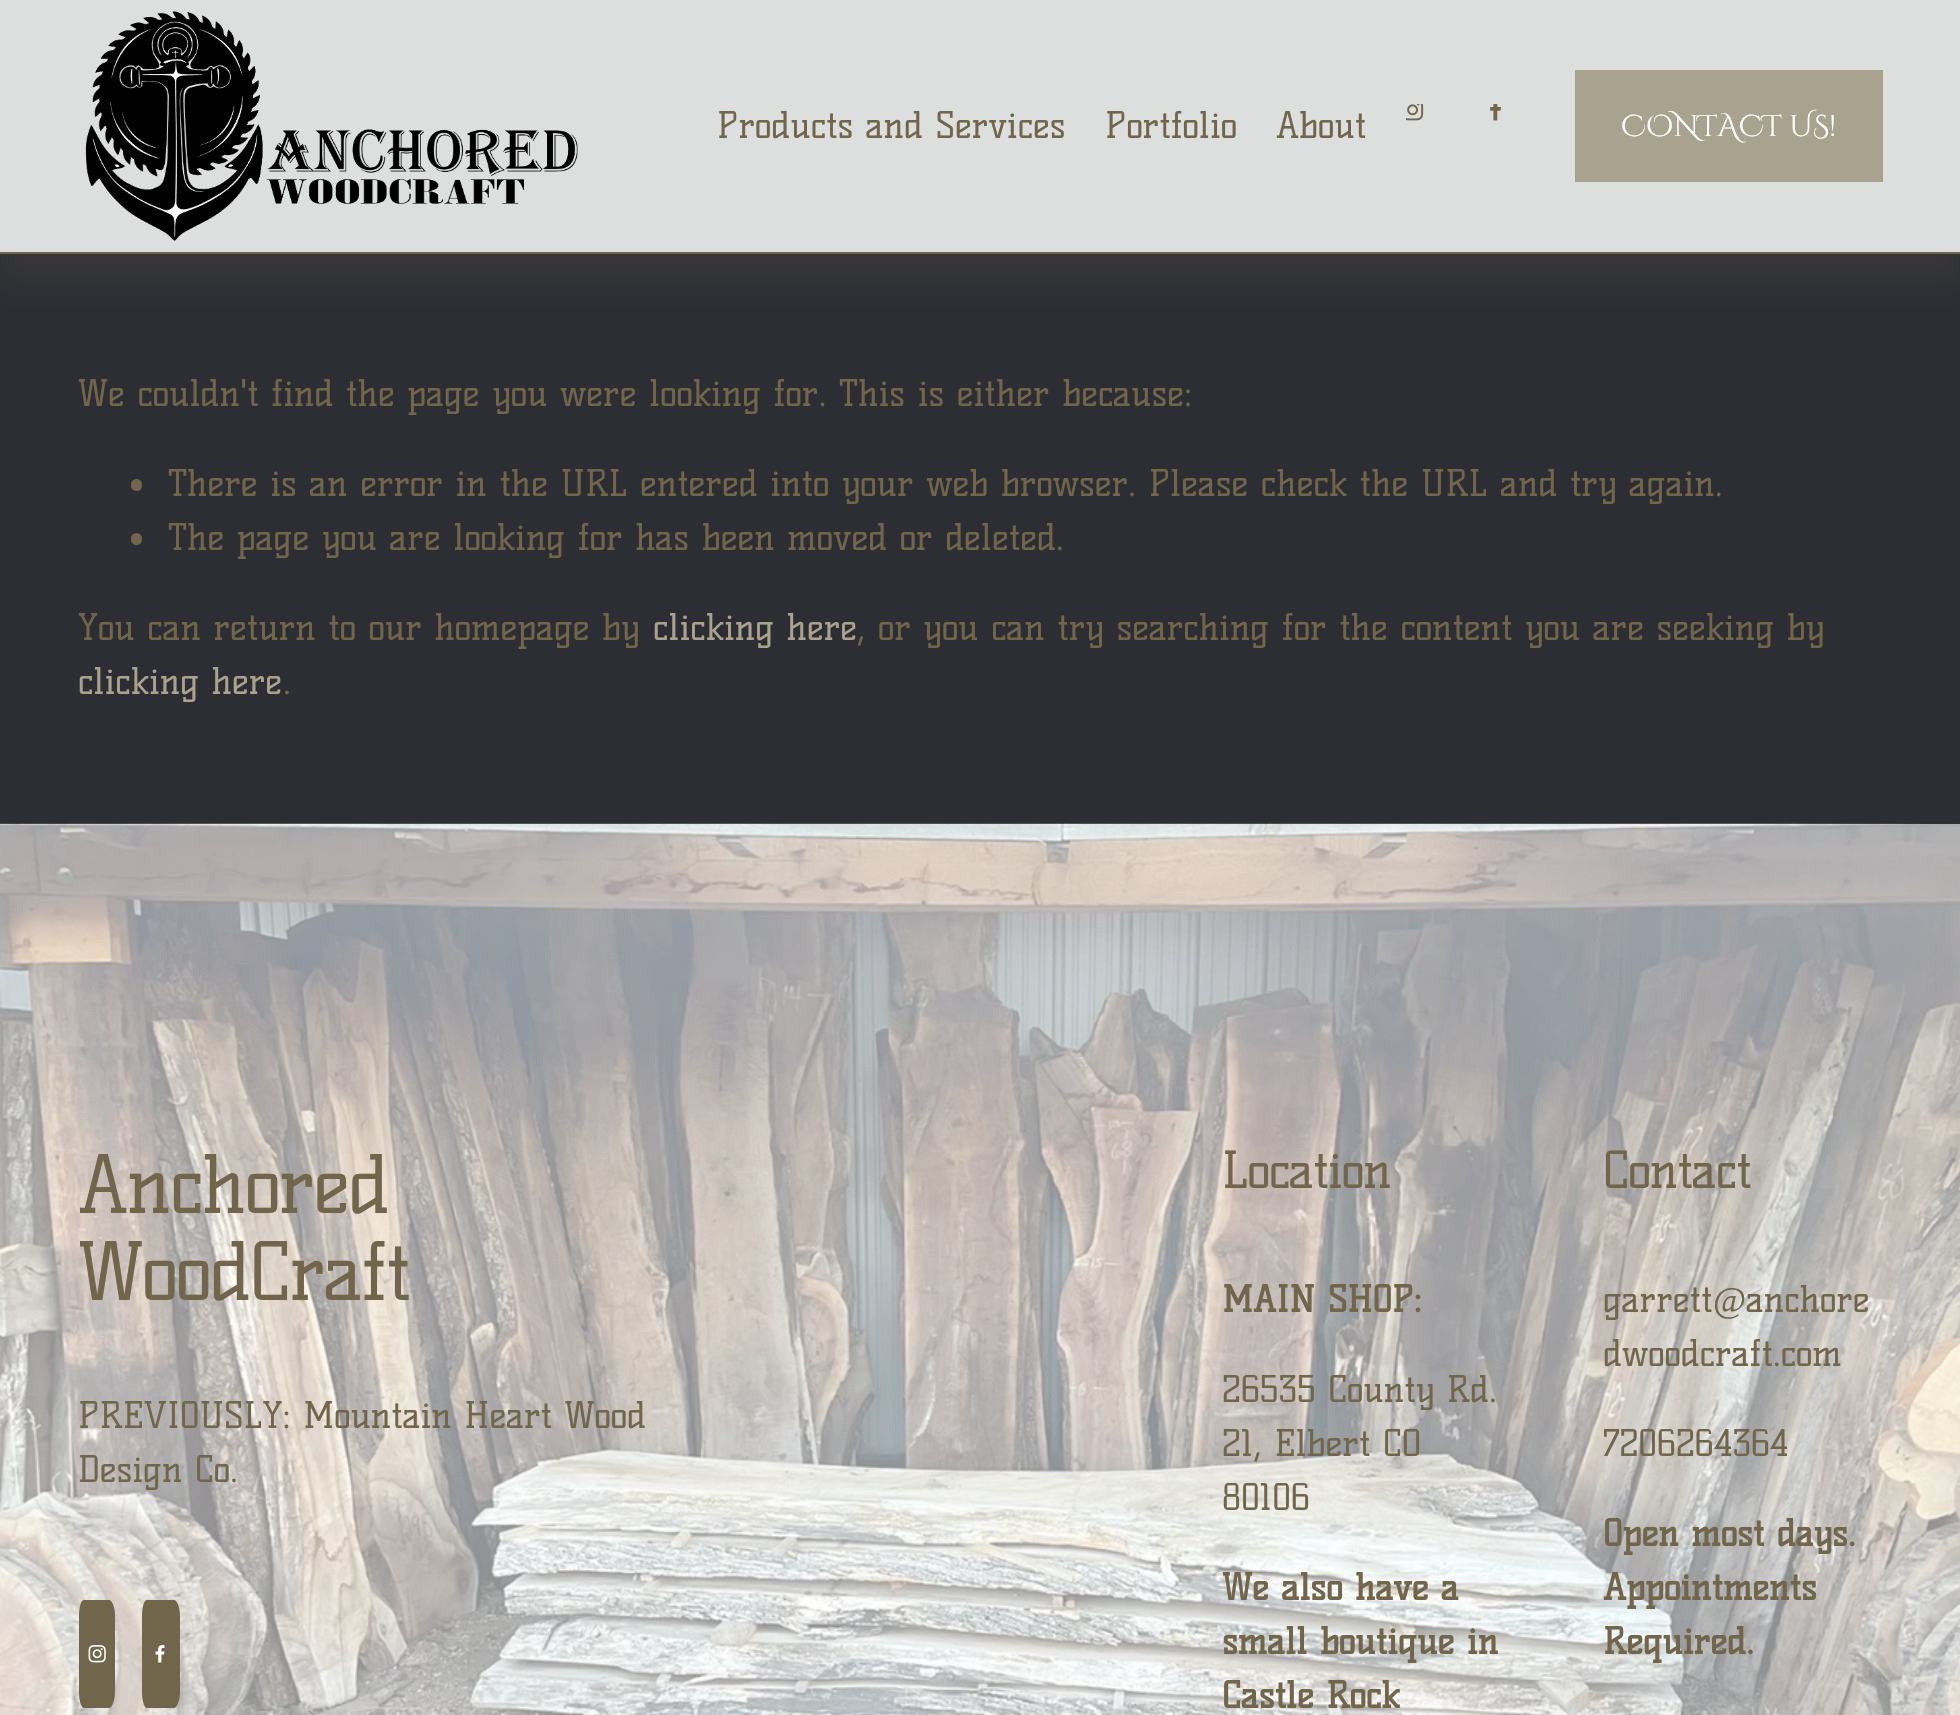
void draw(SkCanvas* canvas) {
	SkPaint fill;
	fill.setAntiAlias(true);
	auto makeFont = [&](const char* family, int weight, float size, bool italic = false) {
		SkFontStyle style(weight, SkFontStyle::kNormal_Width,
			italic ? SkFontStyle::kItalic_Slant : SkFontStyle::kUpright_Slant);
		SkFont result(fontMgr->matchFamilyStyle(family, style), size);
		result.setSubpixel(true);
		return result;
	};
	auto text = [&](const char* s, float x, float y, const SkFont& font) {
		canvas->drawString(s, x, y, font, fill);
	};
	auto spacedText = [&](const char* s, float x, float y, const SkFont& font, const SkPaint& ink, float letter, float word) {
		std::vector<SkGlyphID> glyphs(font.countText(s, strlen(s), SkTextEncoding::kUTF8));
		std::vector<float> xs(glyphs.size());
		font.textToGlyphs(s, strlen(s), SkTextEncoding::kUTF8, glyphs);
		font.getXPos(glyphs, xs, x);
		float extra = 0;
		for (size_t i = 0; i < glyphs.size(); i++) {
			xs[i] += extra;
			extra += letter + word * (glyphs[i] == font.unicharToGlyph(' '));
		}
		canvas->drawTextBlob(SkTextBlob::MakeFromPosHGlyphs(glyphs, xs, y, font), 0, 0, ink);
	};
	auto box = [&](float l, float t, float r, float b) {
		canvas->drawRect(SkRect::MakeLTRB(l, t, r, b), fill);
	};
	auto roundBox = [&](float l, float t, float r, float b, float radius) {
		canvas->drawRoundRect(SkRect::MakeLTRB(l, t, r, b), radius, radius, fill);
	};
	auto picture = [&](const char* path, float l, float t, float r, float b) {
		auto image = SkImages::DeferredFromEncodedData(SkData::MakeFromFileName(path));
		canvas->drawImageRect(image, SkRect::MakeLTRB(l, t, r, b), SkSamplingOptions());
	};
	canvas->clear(0xFF2C2E33);
	fill.setColor(0xFF363637);
	fill.setMaskFilter(SkMaskFilter::MakeBlur(kNormal_SkBlurStyle, 13.5f));
	canvas->drawRect(SkRect::MakeLTRB(0, 27, 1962, 281), fill);
	fill.setMaskFilter(nullptr);
	fill.setColor(0xFFDDDEDE);
	box(0, 0, 1960, 252);
	picture("image0.png", 85, 11, 578, 241);
	picture("image1.png", 1406, 104, 1424, 121);
	picture("image2.png", 1490, 104, 1501, 121);
	fill.setColor(0xFFA8A28E);
	box(1575, 70, 1883, 182);
	fill.setColor(0xFF71654B);
	box(0, 252, 1960, 254);
	roundBox(131, 479, 142, 491, 5.5f);
	roundBox(131, 533, 142, 545, 5.5f);
	picture("image3.png", 0, 823, 1960, 1715);
	canvas->drawPath(SkPathBuilder().moveTo(84, 1600).lineTo(109, 1600).cubicTo(112, 1600, 115, 1607, 115, 1616).lineTo(115, 1692).cubicTo(115, 1700, 112, 1708, 109, 1708).lineTo(84, 1708).cubicTo(81, 1708, 79, 1700, 79, 1692).lineTo(79, 1616).cubicTo(79, 1607, 81, 1600, 84, 1600).close().detach(), fill);
	picture("image4.png", 88, 1645, 106, 1663);
	canvas->drawPath(SkPathBuilder().moveTo(147, 1600).lineTo(174, 1600).cubicTo(177, 1600, 180, 1607, 180, 1616).lineTo(180, 1692).cubicTo(180, 1700, 177, 1708, 174, 1708).lineTo(147, 1708).cubicTo(144, 1708, 142, 1700, 142, 1692).lineTo(142, 1616).cubicTo(142, 1607, 144, 1600, 147, 1600).close().detach(), fill);
	picture("image5.png", 155, 1645, 165, 1663);
	auto font1 = makeFont("Kelly Slab", 400, 36);
	text("Products and Services", 717, 138, font1);
	text("Portfolio", 1105, 138, font1);
	text("About", 1276, 138, font1);
	auto font2 = makeFont("Cinzel Decorative", 400, 30);
	fill.setColor(0xFFFFFFFF);
	text("CONTACT US!", 1621, 136, font2);
	fill.setColor(0xFF71654B);
	text("We couldn't find the page you were looking for. This is either because:", 78, 406, font1);
	text("There is an error in the URL entered into your web browser. Please check the URL and try again.", 168, 496, font1);
	text("The page you are looking for has been moved or deleted.", 168, 550, font1);
	text("You can return to our homepage by", 78, 640, font1);
	fill.setColor(0xFFA8A28E);
	text("clicking here", 653, 640, font1);
	fill.setColor(0xFF71654B);
	text(", or you can try searching for the content you are seeking by", 857, 640, font1);
	fill.setColor(0xFFA8A28E);
	text("clicking here", 78, 694, font1);
	fill.setColor(0xFF71654B);
	text(".", 283, 694, font1);
	auto font3 = makeFont("Kelly Slab", 400, 78.5f);
	spacedText("Anchored", 78, 1213, font3, fill, -1.5f, 0);
	spacedText("WoodCraft", 78, 1300, font3, fill, -1.5f, 0);
	text("PREVIOUSLY: Mountain Heart Wood", 78, 1428, font1);
	text("Design Co.", 78, 1482, font1);
	auto font4 = makeFont("Kelly Slab", 400, 50);
	spacedText("Location", 1222, 1188, font4, fill, -1, 0);
	auto font5 = makeFont("Kelly Slab", 700, 36);
	text("MAIN SHOP:", 1222, 1312, font5);
	text("26535 County Rd.", 1222, 1402, font1);
	text("21, Elbert CO", 1222, 1456, font1);
	text("80106", 1222, 1510, font1);
	text("We also have a", 1222, 1600, font5);
	text("small boutique in", 1222, 1654, font5);
	text("Castle Rock", 1222, 1708, font5);
	spacedText("Contact", 1603, 1188, font4, fill, -1, 0);
	text("garrett", 1603, 1312, font1);
	auto font6 = makeFont("Liberation Serif", 400, 36);
	text("@", 1713, 1312, font6);
	text("anchore", 1746, 1312, font1);
	text("dwoodcraft.com", 1603, 1366, font1);
	text("7206264364", 1603, 1456, font1);
	text("Open most days.", 1603, 1546, font5);
	text("Appointments", 1603, 1600, font5);
	text("Required.", 1603, 1654, font5);
}
